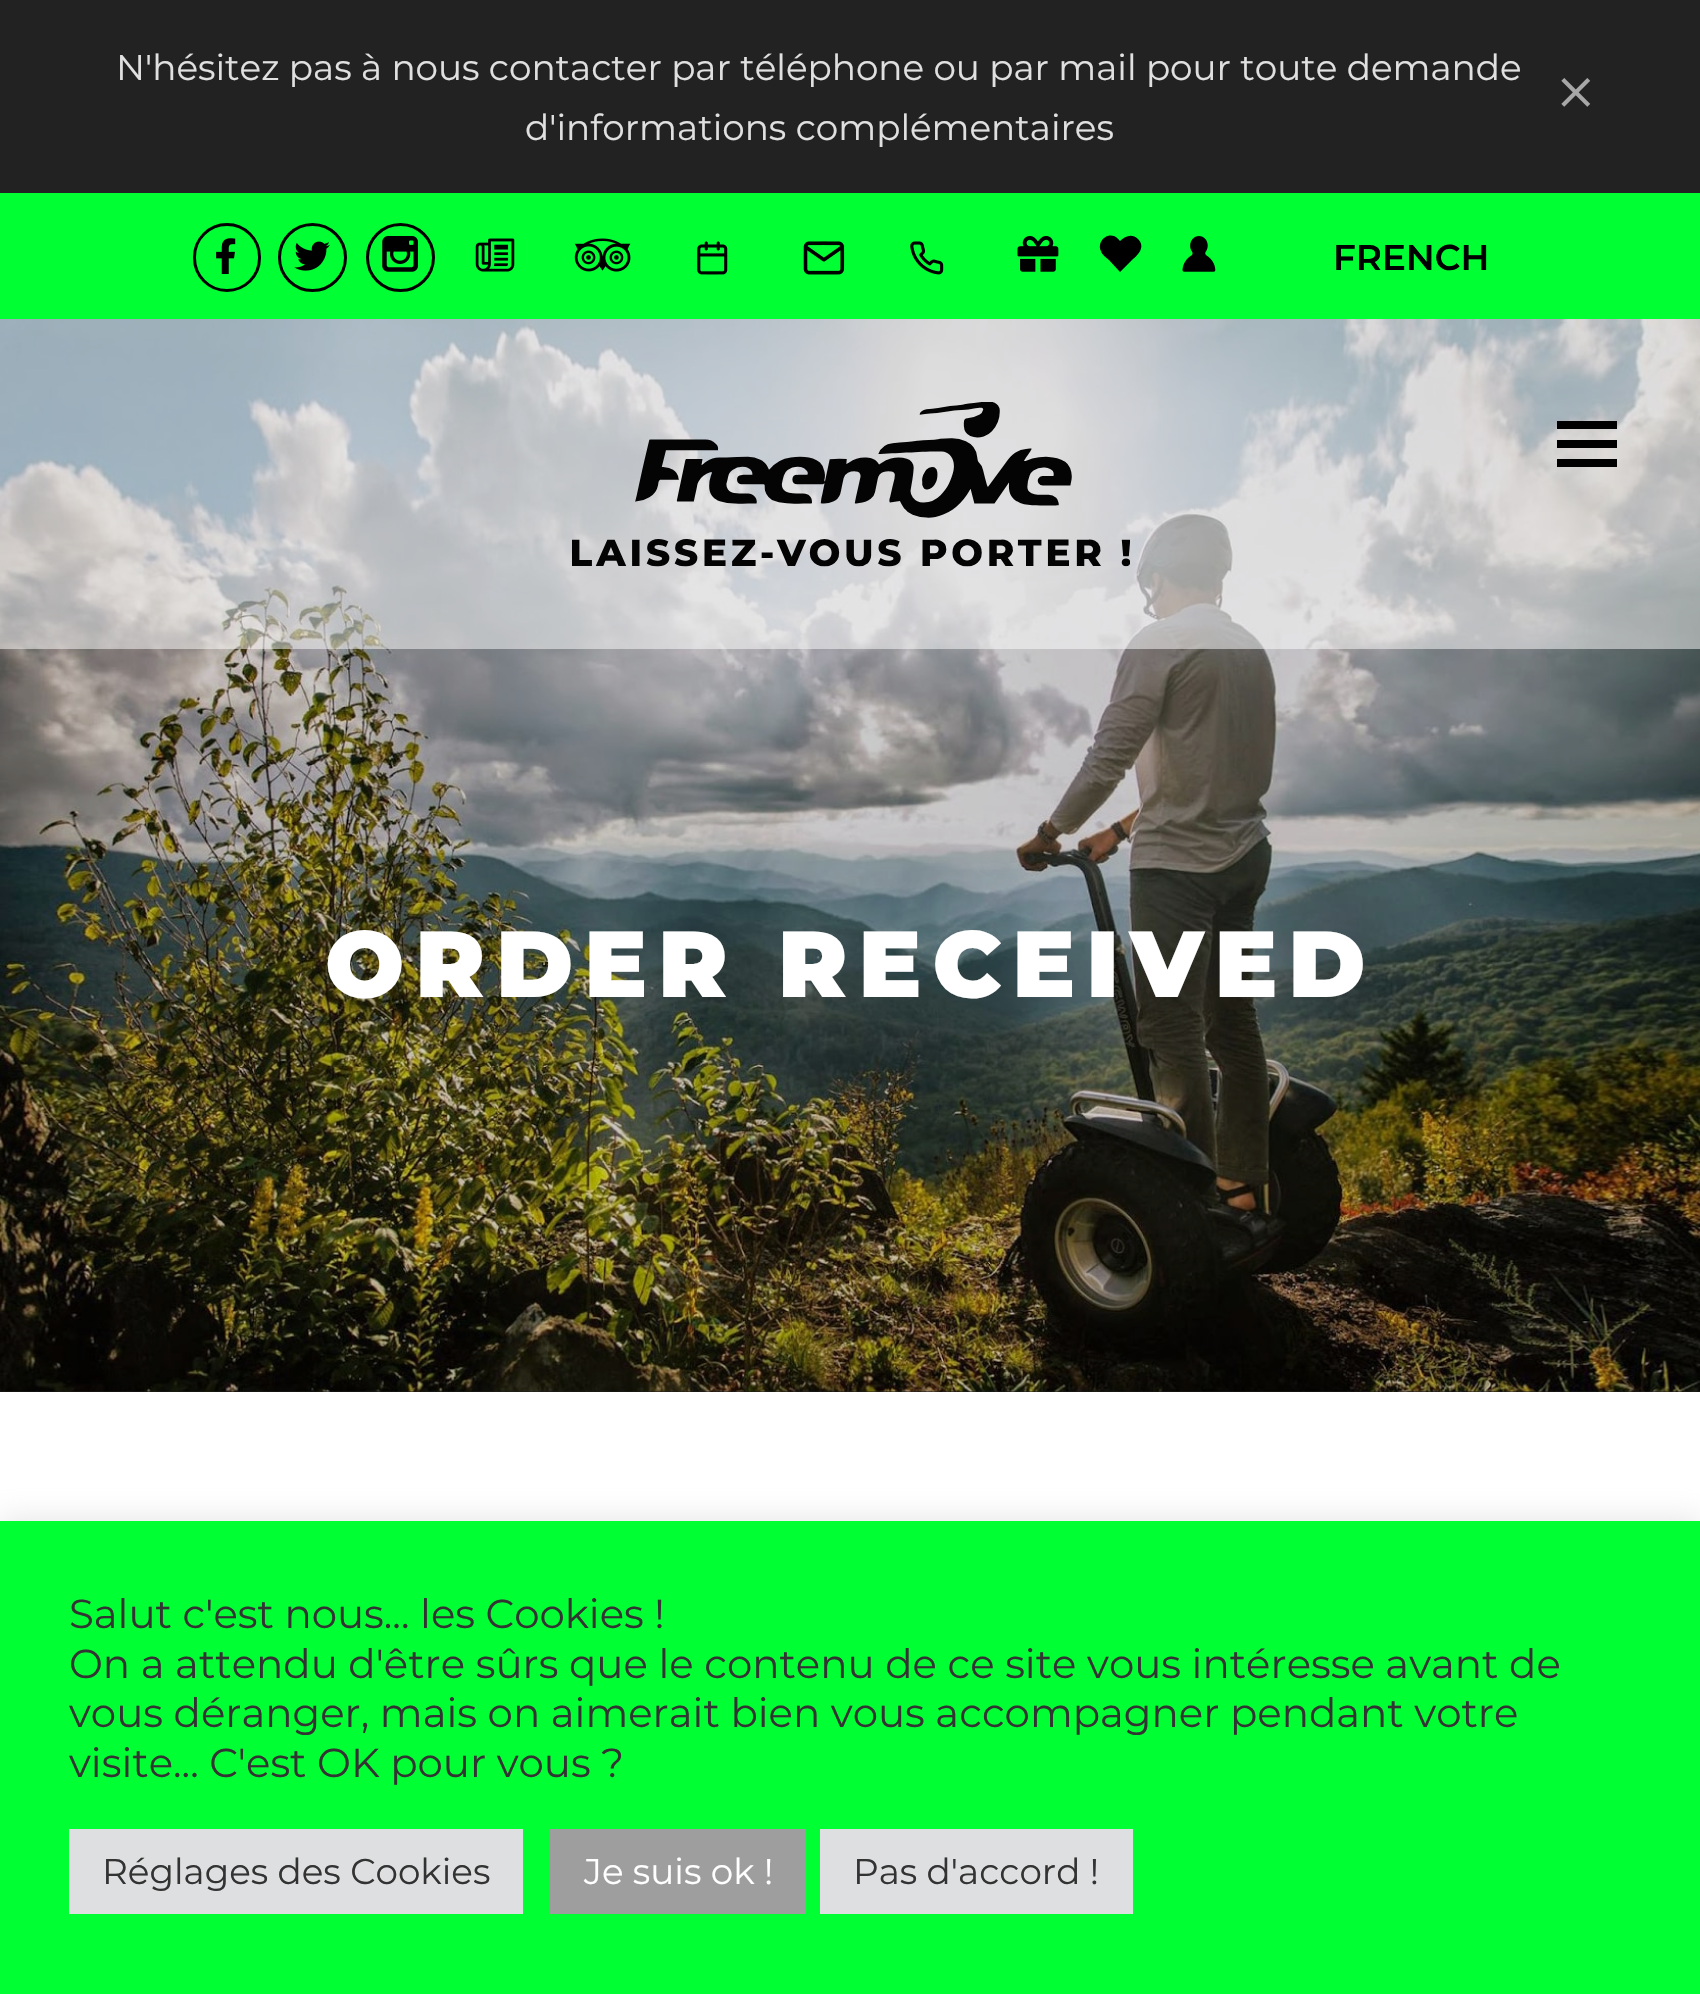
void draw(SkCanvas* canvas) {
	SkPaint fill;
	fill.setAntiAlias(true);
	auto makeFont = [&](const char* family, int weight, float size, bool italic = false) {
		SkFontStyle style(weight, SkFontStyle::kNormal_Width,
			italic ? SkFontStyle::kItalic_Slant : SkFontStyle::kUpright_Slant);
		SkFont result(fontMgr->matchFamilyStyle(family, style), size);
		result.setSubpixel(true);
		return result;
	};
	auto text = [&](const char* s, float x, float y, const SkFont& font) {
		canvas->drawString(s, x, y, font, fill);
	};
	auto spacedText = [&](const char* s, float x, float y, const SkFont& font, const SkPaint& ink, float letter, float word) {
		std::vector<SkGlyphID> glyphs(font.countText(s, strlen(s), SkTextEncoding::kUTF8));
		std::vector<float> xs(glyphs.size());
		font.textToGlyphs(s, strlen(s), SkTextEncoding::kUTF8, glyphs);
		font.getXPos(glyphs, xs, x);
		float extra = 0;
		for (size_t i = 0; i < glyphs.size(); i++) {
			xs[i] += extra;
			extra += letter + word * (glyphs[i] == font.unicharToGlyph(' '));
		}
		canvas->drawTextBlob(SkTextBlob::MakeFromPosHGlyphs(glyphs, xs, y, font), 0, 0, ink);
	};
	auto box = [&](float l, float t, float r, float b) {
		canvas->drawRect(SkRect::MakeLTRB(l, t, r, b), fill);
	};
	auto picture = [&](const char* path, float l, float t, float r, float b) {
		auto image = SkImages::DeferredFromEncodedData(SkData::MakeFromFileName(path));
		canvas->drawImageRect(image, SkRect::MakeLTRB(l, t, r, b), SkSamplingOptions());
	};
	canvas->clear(0xFFFFFFFF);
	fill.setColor(0xFF222222);
	box(0, 0, 1700, 193);
	picture("image0.png", 1561, 78, 1591, 107);
	fill.setColor(0xFF00FF33);
	box(0, 193, 1700, 319);
	fill.setStyle(SkPaint::kStroke_Style);
	fill.setStrokeWidth(3);
	fill.setColor(0xFF000000);
	canvas->drawRoundRect(SkRect::MakeLTRB(194.5f, 224.5f, 259.5f, 290.5f), 32.5f, 32.5f, fill);
	picture("image1.png", 216, 238, 236, 274);
	canvas->drawCircle(312.5f, 257.5f, 33, fill);
	picture("image2.png", 294, 241, 330, 271);
	canvas->drawCircle(400.5f, 257.5f, 33, fill);
	picture("image3.png", 382, 236, 418, 272);
	picture("image4.png", 475, 238, 515, 272);
	picture("image5.png", 574, 238, 631, 272);
	picture("image6.png", 697, 241, 728, 275);
	picture("image7.png", 803, 241, 845, 275);
	picture("image8.png", 910, 241, 944, 275);
	picture("image9.png", 1017, 236, 1059, 272);
	fill.setStyle(SkPaint::kFill_Style);
	canvas->drawPath(SkPathBuilder().moveTo(1138, 239).cubicTo(1132, 233, 1125, 236, 1120, 241).cubicTo(1118, 239, 1117, 237, 1114, 236).cubicTo(1105, 233, 1097, 243, 1101, 251).cubicTo(1102, 255, 1106, 257, 1109, 260).lineTo(1120, 272).lineTo(1132, 260).cubicTo(1138, 255, 1146, 247, 1138, 239).close().detach(), fill);
	picture("image10.png", 1182, 236, 1216, 272);
	fill.setColor(0xFF1C1C1C);
	box(0, 1391, 1700, 1392);
	picture("image12.png", 0, 319, 1700, 1392);
	fill.setColor(0x80FFFFFF);
	box(0, 319, 1700, 649);
	picture("image11.png", 572, 402, 1130, 567);
	fill.setColor(0xFF000000);
	box(1557, 440, 1617, 448);
	box(1557, 421, 1617, 429);
	box(1557, 459, 1617, 467);
	fill.setColor(0x4DACABAB);
	fill.setMaskFilter(SkMaskFilter::MakeBlur(kNormal_SkBlurStyle, 14));
	canvas->drawRect(SkRect::MakeLTRB(0, 1518, 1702, 1994), fill);
	fill.setMaskFilter(nullptr);
	fill.setColor(0xFF00FF33);
	box(0, 1521, 1700, 1994);
	fill.setColor(0xFFDEDFE0);
	box(69, 1829, 523, 1914);
	fill.setColor(0xFF9E9E9E);
	box(550, 1829, 806, 1914);
	fill.setColor(0xFFDEDFE0);
	box(820, 1829, 1133, 1914);
	auto font1 = makeFont("Montserrat", 400, 35.75f);
	fill.setColor(0xFFE0E0E0);
	text("N'hésitez pas à nous contacter par téléphone ou par mail pour toute demande", 116, 80, font1);
	text("d'informations complémentaires", 525, 140, font1);
	auto font2 = makeFont("Montserrat", 600, 35.75f);
	fill.setColor(0xFF000000);
	text("FRENCH", 1333, 270, font2);
	auto font3 = makeFont("Montserrat", 900, 93.5f);
	fill.setColor(0xFFFFFFFF);
	spacedText("ORDER RECEIVED", 325, 997, font3, fill, 11, 0);
	auto font4 = makeFont("Montserrat", 400, 40.35f);
	fill.setColor(0xFF333333);
	text("Salut c'est nous... les Cookies !", 69, 1628, font4);
	text("On a attendu d'être sûrs que le contenu de ce site vous intéresse avant de", 69, 1678, font4);
	text("vous déranger, mais on aimerait bien vous accompagner pendant votre", 69, 1727, font4);
	text("visite... C'est OK pour vous ?", 69, 1777, font4);
	text("Réglages des Cookies", 102, 1884, font1);
	fill.setColor(0xFFFFFFFF);
	text("Je suis ok !", 584, 1884, font1);
	fill.setColor(0xFF333333);
	text("Pas d'accord !", 853, 1884, font1);
}
